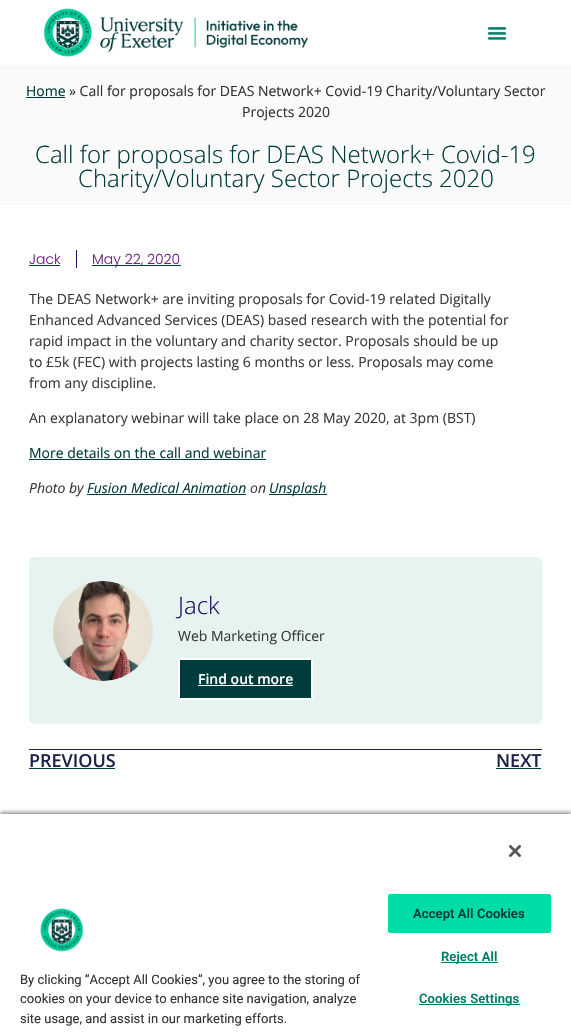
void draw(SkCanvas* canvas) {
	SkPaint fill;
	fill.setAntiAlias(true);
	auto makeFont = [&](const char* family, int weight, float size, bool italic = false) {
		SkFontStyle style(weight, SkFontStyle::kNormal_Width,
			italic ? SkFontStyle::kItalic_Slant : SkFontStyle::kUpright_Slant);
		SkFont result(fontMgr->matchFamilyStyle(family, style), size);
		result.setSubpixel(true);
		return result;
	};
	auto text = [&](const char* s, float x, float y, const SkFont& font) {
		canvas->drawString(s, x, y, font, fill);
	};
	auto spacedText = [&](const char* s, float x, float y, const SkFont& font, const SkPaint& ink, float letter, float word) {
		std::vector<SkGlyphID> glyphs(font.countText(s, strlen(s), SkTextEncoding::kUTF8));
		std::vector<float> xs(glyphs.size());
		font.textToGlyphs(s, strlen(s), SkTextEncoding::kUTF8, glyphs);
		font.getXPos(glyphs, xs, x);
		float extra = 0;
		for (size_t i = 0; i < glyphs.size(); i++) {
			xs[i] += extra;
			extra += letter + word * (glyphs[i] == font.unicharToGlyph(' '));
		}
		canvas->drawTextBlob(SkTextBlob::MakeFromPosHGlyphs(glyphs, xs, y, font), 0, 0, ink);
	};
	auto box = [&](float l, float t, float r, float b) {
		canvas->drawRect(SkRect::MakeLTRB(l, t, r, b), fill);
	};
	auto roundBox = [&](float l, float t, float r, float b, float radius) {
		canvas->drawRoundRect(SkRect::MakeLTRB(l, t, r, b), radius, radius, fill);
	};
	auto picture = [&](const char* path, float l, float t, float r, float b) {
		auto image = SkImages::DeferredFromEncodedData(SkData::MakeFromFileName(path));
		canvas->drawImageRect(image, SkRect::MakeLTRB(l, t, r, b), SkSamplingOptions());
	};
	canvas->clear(0xFFFFFFFF);
	picture("image0.png", 43, 8, 309, 57);
	picture("image1.png", 487, 27, 507, 40);
	fill.setColor(0xFFFAFAFA);
	box(0, 65, 571, 205);
	fill.setColor(0xFF003C3B);
	box(26, 97, 65, 98);
	box(29, 265, 60, 266);
	fill.setColor(0xFF250E62);
	box(76, 250, 77, 268);
	fill.setColor(0xFF003C3B);
	box(92, 265, 181, 266);
	box(29, 459, 266, 460);
	box(87, 494, 246, 495);
	box(269, 494, 327, 495);
	fill.setColor(0xFFE6F3F1);
	roundBox(29, 557, 542, 724, 5);
	picture("image2.png", 53, 581, 153, 681);
	fill.setColor(0xFF003C3B);
	canvas->drawRoundRect(SkRect::MakeLTRB(179, 659, 312, 699), 1, 1, fill);
	fill.setStyle(SkPaint::kStroke_Style);
	fill.setStrokeWidth(2);
	fill.setColor(0xFFFFFFFF);
	canvas->drawRoundRect(SkRect::MakeLTRB(179, 659, 312, 699), 1, 1, fill);
	fill.setStyle(SkPaint::kFill_Style);
	box(198, 685, 293, 686);
	fill.setColor(0xFF1C244B);
	box(29, 749, 542, 750);
	fill.setColor(0xFF003C3B);
	box(29, 768, 115, 769);
	box(496, 768, 541, 769);
	fill.setColor(0x59000000);
	fill.setMaskFilter(SkMaskFilter::MakeBlur(kNormal_SkBlurStyle, 2));
	canvas->drawRect(SkRect::MakeLTRB(0, 812, 571, 1033), fill);
	fill.setMaskFilter(nullptr);
	fill.setColor(0x33000000);
	fill.setMaskFilter(SkMaskFilter::MakeBlur(kNormal_SkBlurStyle, 2));
	canvas->drawRect(SkRect::MakeLTRB(0, 814, 571, 1033), fill);
	fill.setMaskFilter(nullptr);
	fill.setColor(0xFFFFFFFF);
	box(0, 814, 571, 1033);
	picture("image3.png", 509, 845, 521, 857);
	picture("image4.png", 40, 908, 84, 952);
	fill.setColor(0xFF00DCA5);
	canvas->drawRoundRect(SkRect::MakeLTRB(388.5f, 894.5f, 550.5f, 932.5f), 1.5f, 1.5f, fill);
	fill.setStyle(SkPaint::kStroke_Style);
	fill.setStrokeWidth(1);
	canvas->drawRoundRect(SkRect::MakeLTRB(388.5f, 894.5f, 550.5f, 932.5f), 1.5f, 1.5f, fill);
	fill.setStyle(SkPaint::kFill_Style);
	fill.setColor(0xFF007D69);
	box(441, 962, 498, 963);
	box(419, 1004, 520, 1005);
	auto font1 = makeFont("Open Sans", 400, 14);
	fill.setColor(0xFF003C3B);
	text("Home", 26, 96, font1);
	fill.setColor(0xFF333333);
	text("» Call for proposals for DEAS Network+ Covid-19 Charity/Voluntary Sector", 69, 96, font1);
	text("Projects 2020", 242, 117, font1);
	auto font2 = makeFont("Open Sans", 300, 24);
	fill.setColor(0xFF003C3B);
	text("Call for proposals for DEAS Network+ Covid-19", 35, 163, font2);
	text("Charity/Voluntary Sector Projects 2020", 78, 187, font2);
	auto font3 = makeFont("Poppins", 300, 14);
	fill.setColor(0xFF702082);
	text("Jack", 29, 264, font3);
	text("May 22, 2020", 92, 264, font3);
	fill.setColor(0xFF393939);
	text("The DEAS Network+ are inviting proposals for Covid-19 related Digitally", 29, 304, font1);
	text("Enhanced Advanced Services (DEAS) based research with the potential for", 29, 325, font1);
	text("rapid impact in the voluntary and charity sector. Proposals should be up", 29, 346, font1);
	text("to £5k (FEC) with projects lasting 6 months or less. Proposals may come", 29, 367, font1);
	text("from any discipline.", 29, 388, font1);
	text("An explanatory webinar will take place on 28 May 2020, at 3pm (BST)", 29, 423, font1);
	fill.setColor(0xFF003C3B);
	text("More details on the call and webinar", 29, 458, font1);
	auto font4 = makeFont("Open Sans", 400, 14, true);
	fill.setColor(0xFF393939);
	text("Photo by", 29, 493, font4);
	fill.setColor(0xFF003C3B);
	text("Fusion Medical Animation", 87, 493, font4);
	fill.setColor(0xFF393939);
	text("on", 250, 493, font4);
	fill.setColor(0xFF003C3B);
	text("Unsplash", 269, 493, font4);
	fill.setColor(0xFF250E62);
	text("Jack", 178, 614, font2);
	fill.setColor(0xFF393939);
	text("Web Marketing Officer", 178, 641, font1);
	auto font5 = makeFont("Open Sans", 600, 14);
	fill.setColor(0xFFFFFFFF);
	text("Find out more", 198, 684, font5);
	auto font6 = makeFont("Open Sans", 600, 18);
	fill.setColor(0xFF1C244B);
	text("PREVIOUS", 29, 767, font6);
	text("NEXT", 496, 767, font6);
	auto font7 = makeFont("Roboto", 400, 13);
	fill.setColor(0xFF333333);
	text("By clicking “Accept All Cookies”, you agree to the storing of", 20, 984, font7);
	text("cookies on your device to enhance site navigation, analyze", 20, 1003, font7);
	text("site usage, and assist in our marketing efforts.", 20, 1023, font7);
	auto font8 = makeFont("Roboto", 600, 13);
	fill.setColor(0xFF003C3B);
	spacedText("Accept All Cookies", 413, 918, font8, fill, 0.1f, 0);
	fill.setColor(0xFF007D69);
	spacedText("Reject All", 441, 961, font8, fill, 0.1f, 0);
	spacedText("Cookies Settings", 419, 1003, font8, fill, 0.1f, 0);
}
